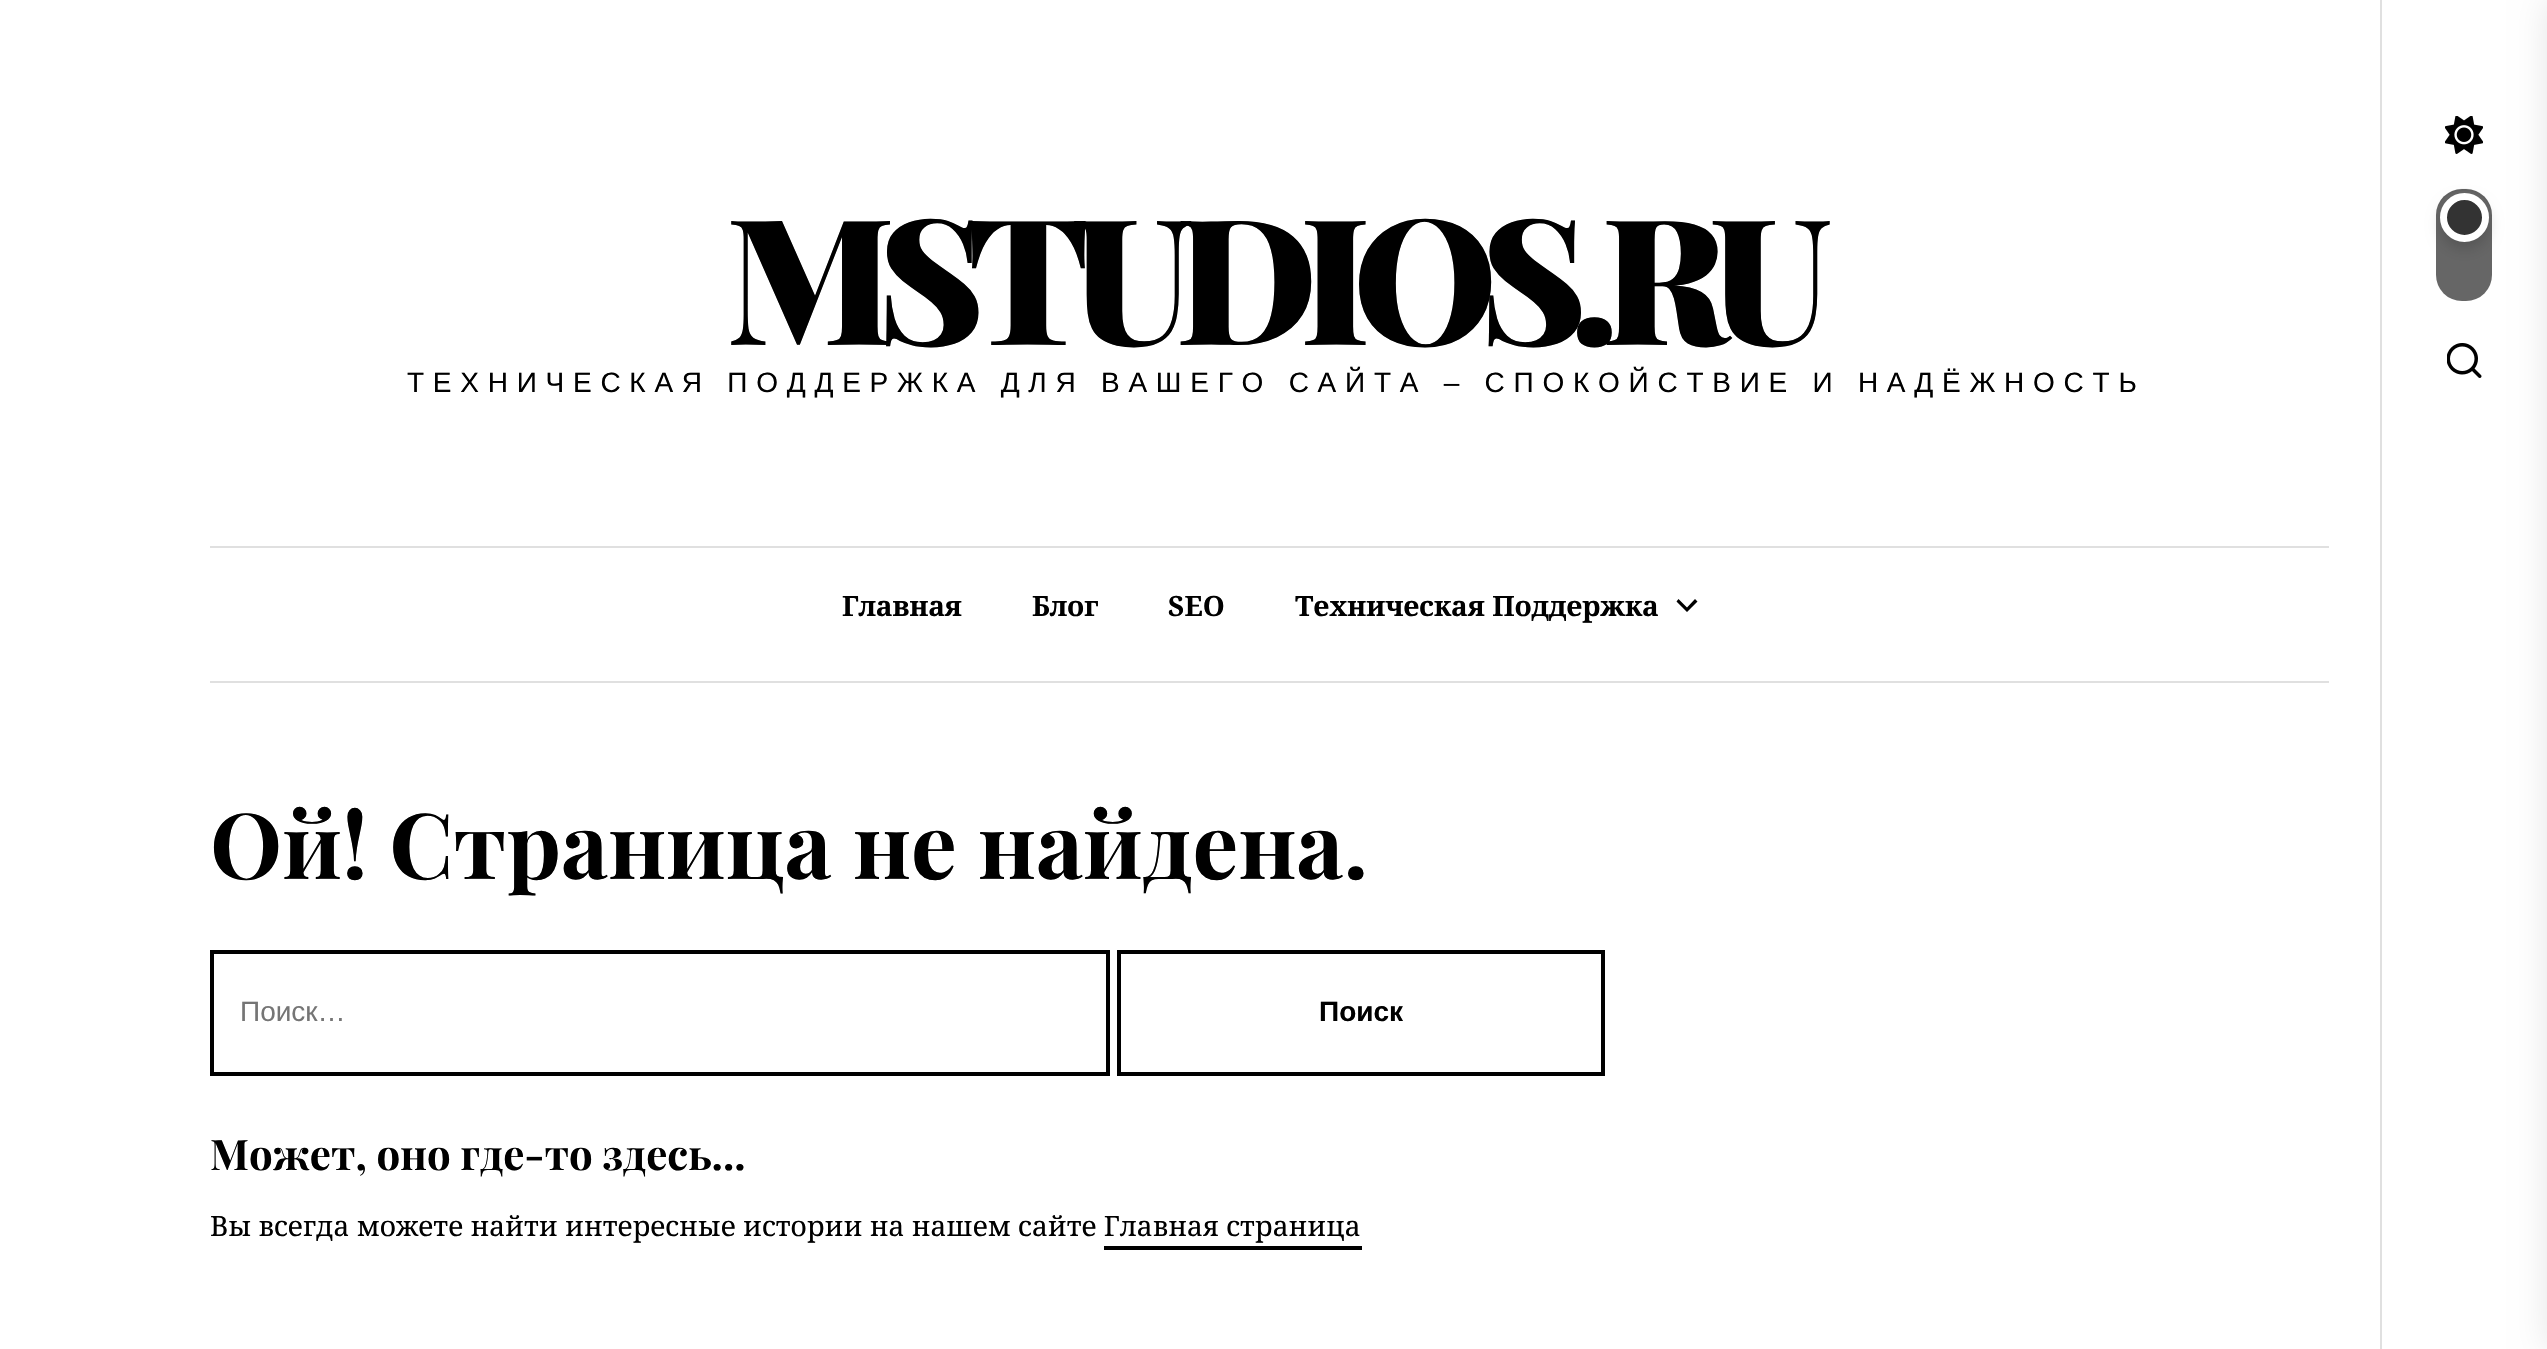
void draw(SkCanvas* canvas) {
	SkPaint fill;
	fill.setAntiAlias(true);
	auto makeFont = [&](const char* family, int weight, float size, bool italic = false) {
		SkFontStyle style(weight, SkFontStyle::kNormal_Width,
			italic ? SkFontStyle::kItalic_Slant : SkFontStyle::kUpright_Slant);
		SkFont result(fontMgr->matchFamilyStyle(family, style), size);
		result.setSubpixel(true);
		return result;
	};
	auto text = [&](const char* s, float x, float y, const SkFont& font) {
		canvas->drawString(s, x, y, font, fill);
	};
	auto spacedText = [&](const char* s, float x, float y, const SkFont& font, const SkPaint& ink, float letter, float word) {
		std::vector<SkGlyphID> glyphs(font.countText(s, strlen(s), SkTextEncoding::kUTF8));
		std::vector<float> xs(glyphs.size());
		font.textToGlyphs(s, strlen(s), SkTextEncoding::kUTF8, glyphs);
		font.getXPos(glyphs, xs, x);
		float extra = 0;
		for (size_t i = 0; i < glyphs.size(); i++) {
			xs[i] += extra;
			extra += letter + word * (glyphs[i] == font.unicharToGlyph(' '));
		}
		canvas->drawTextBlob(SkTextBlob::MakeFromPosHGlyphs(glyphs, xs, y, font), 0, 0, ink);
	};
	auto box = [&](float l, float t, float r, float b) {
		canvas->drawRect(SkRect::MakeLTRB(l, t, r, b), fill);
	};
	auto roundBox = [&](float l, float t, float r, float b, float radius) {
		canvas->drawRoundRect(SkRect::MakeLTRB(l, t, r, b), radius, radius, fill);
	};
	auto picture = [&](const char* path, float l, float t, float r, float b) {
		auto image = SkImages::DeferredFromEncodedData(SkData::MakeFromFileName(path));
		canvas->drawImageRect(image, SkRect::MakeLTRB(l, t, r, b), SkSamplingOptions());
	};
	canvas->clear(0xFFFFFFFF);
	fill.setColor(0xFFE0E0E0);
	box(210, 546, 2329, 548);
	box(210, 681, 2329, 683);
	fill.setColor(0xFF000000);
	canvas->drawPath(SkPathBuilder(SkPathFillType::kEvenOdd).moveTo(1687, 607.5f).lineTo(1695, 599).lineTo(1697.5f, 601.5f).lineTo(1687, 612).lineTo(1676.5f, 601.5f).lineTo(1678.5f, 599).close().detach(), fill);
	fill.setColor(0xFFE0E0E0);
	box(2380, 0, 2382, 1349);
	picture("image0.png", 2445, 116, 2483, 154);
	fill.setColor(0xFF666666);
	roundBox(2436, 189, 2492, 301, 26);
	fill.setColor(0x0D000000);
	canvas->drawPath(SkPathBuilder().moveTo(2462, 191).lineTo(2466, 191).cubicTo(2480, 191, 2492, 203, 2492, 217).cubicTo(2492, 179, 2436, 179, 2436, 217).cubicTo(2436, 203, 2448, 191, 2462, 191).close().detach(), fill);
	fill.setColor(0x29000000);
	fill.setMaskFilter(SkMaskFilter::MakeBlur(kNormal_SkBlurStyle, 7));
	canvas->drawRoundRect(SkRect::MakeLTRB(2440, 200, 2489, 249), 24.5f, 24.5f, fill);
	fill.setMaskFilter(nullptr);
	fill.setColor(0xFF333333);
	canvas->drawCircle(2464.5f, 217.5f, 21, fill);
	fill.setStyle(SkPaint::kStroke_Style);
	fill.setStrokeWidth(7);
	fill.setColor(0xFFFFFFFF);
	canvas->drawCircle(2464.5f, 217.5f, 21, fill);
	picture("image1.png", 2447, 343, 2482, 378);
	fill.setStyle(SkPaint::kFill_Style);
	fill.setColor(0x1A000000);
	fill.setMaskFilter(SkMaskFilter::MakeBlur(kNormal_SkBlurStyle, 17.5f));
	canvas->drawRect(SkRect::MakeLTRB(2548, 0, 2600, 1349), fill);
	fill.setMaskFilter(nullptr);
	fill.setStyle(SkPaint::kStroke_Style);
	fill.setStrokeWidth(4);
	fill.setColor(0xFF000000);
	canvas->drawRect(SkRect::MakeLTRB(212, 952, 1108, 1074), fill);
	canvas->drawRect(SkRect::MakeLTRB(1119, 952, 1603, 1074), fill);
	fill.setStyle(SkPaint::kFill_Style);
	box(1104, 1246, 1362, 1250);
	auto font1 = makeFont("Playfair Display", 900, 175);
	spacedText("MSTUDIOS.RU", 726, 345, font1, fill, -17.5f, 0);
	auto font2 = makeFont("Liberation Sans", 400, 28);
	spacedText("ТЕХНИЧЕСКАЯ ПОДДЕРЖКА ДЛЯ ВАШЕГО САЙТА – СПОКОЙСТВИЕ И НАДЁЖНОСТЬ", 407, 392, font2, fill, 8.75f, 0);
	auto font3 = makeFont("Noto Serif", 700, 28);
	text("Главная", 842, 616, font3);
	text("Блог", 1032, 616, font3);
	text("SEO", 1168, 616, font3);
	text("Техническая Поддержка", 1295, 616, font3);
	auto font4 = makeFont("Playfair Display", 700, 91);
	text("Ой! Страница не найдена.", 210, 879, font4);
	fill.setColor(0xFF757575);
	text("Поиск…", 240, 1021, font2);
	auto font5 = makeFont("Liberation Sans", 700, 28);
	fill.setColor(0xFF000000);
	text("Поиск", 1319, 1021, font5);
	auto font6 = makeFont("Playfair Display", 700, 42);
	text("Может, оно где-то здесь...", 210, 1170, font6);
	auto font7 = makeFont("Noto Serif", 400, 28);
	text("Вы всегда можете найти интересные истории на нашем сайте Главная страница", 210, 1236, font7);
}
